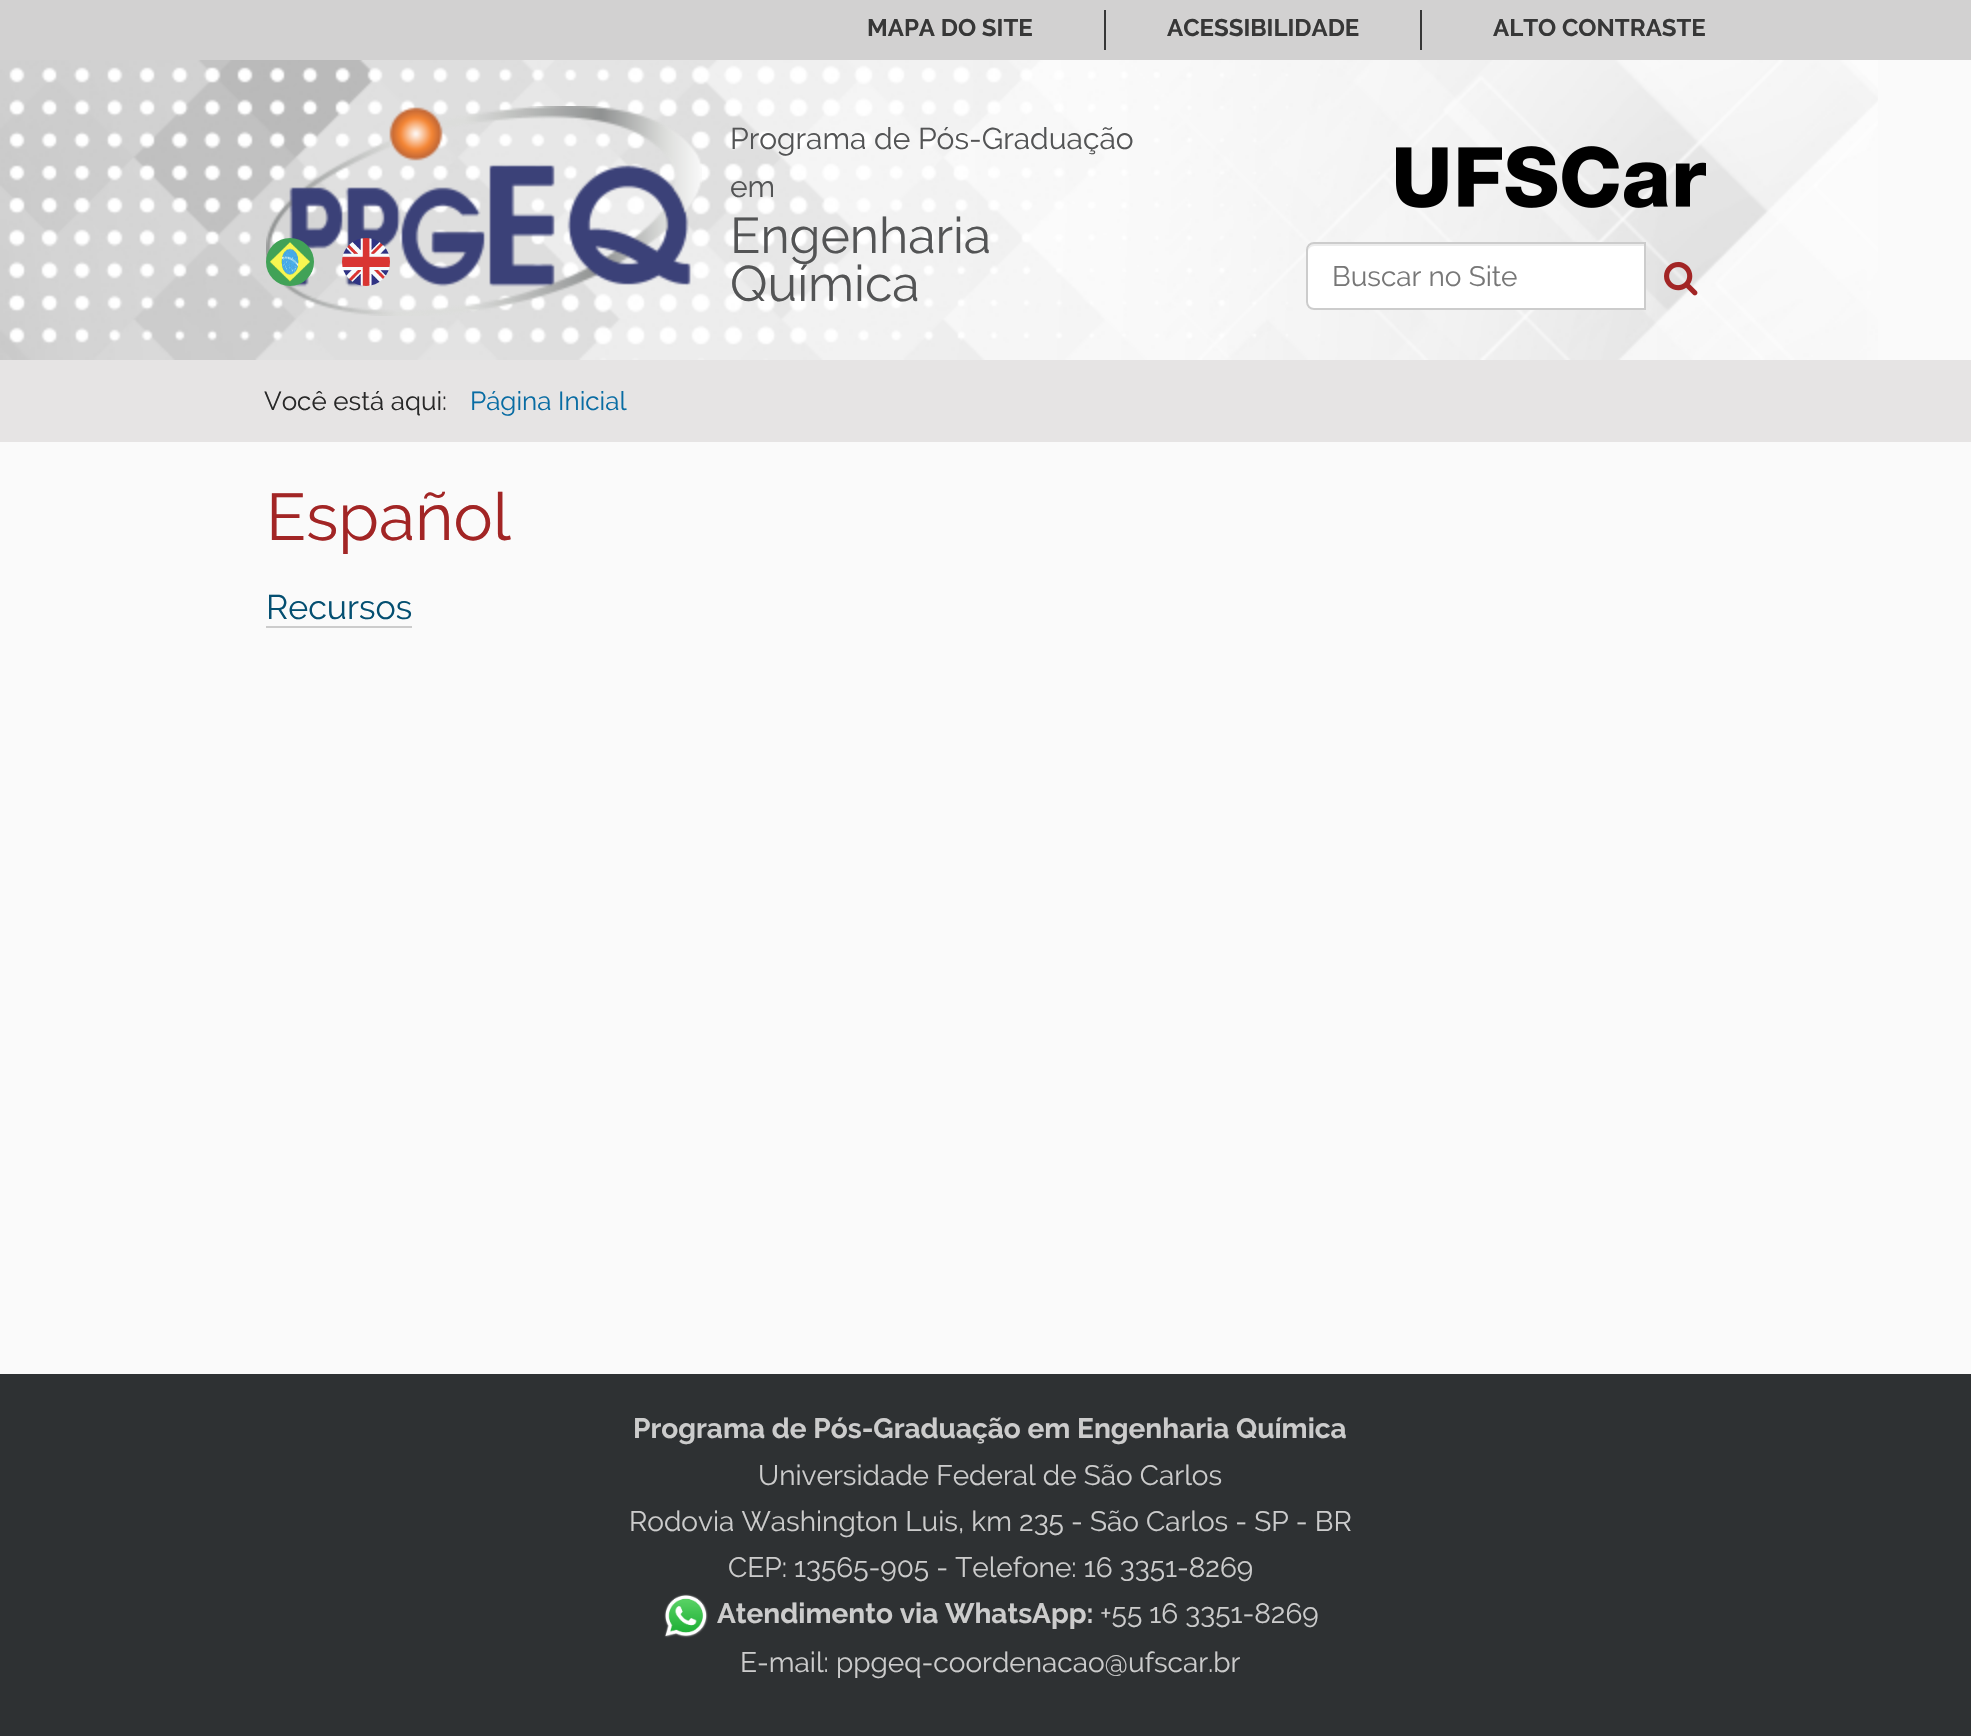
void draw(SkCanvas* canvas) {
	SkPaint fill;
	fill.setAntiAlias(true);
	auto makeFont = [&](const char* family, int weight, float size, bool italic = false) {
		SkFontStyle style(weight, SkFontStyle::kNormal_Width,
			italic ? SkFontStyle::kItalic_Slant : SkFontStyle::kUpright_Slant);
		SkFont result(fontMgr->matchFamilyStyle(family, style), size);
		result.setSubpixel(true);
		return result;
	};
	auto text = [&](const char* s, float x, float y, const SkFont& font) {
		canvas->drawString(s, x, y, font, fill);
	};
	auto box = [&](float l, float t, float r, float b) {
		canvas->drawRect(SkRect::MakeLTRB(l, t, r, b), fill);
	};
	auto picture = [&](const char* path, float l, float t, float r, float b) {
		auto image = SkImages::DeferredFromEncodedData(SkData::MakeFromFileName(path));
		canvas->drawImageRect(image, SkRect::MakeLTRB(l, t, r, b), SkSamplingOptions());
	};
	canvas->clear(0xFFFAFAFA);
	picture("image0.png", 0, 60, 1878, 360);
	fill.setColor(0xFFD2D1D1);
	box(0, 0, 1971, 60);
	fill.setColor(0xFF373737);
	box(1420, 10, 1422, 50);
	box(1104, 10, 1106, 50);
	picture("image3.png", 266, 106, 702, 316);
	picture("image1.png", 266, 238, 314, 286);
	picture("image2.png", 342, 238, 390, 286);
	fill.setColor(0xFFFFFFFF);
	canvas->drawPath(SkPathBuilder().moveTo(1314, 242).lineTo(1646, 242).lineTo(1646, 310).lineTo(1314, 310).cubicTo(1309.5f, 310, 1306, 306.5f, 1306, 302).lineTo(1306, 250).cubicTo(1306, 245.5f, 1309.5f, 242, 1314, 242).close().detach(), fill);
	fill.setColor(0xFFECECEC);
	canvas->drawPath(SkPathBuilder().moveTo(1314, 246).lineTo(1644, 246).lineTo(1644, 244).lineTo(1313, 244).cubicTo(1309, 245, 1308, 249, 1308, 252).cubicTo(1308, 249, 1311, 246, 1314, 246).close().detach(), fill);
	fill.setStyle(SkPaint::kStroke_Style);
	fill.setStrokeWidth(2);
	fill.setColor(0xFFCCCCCC);
	canvas->drawPath(SkPathBuilder().moveTo(1314, 243).lineTo(1645, 243).lineTo(1645, 309).lineTo(1314, 309).cubicTo(1310, 309, 1307, 306, 1307, 302).lineTo(1307, 250).cubicTo(1307, 246, 1310, 243, 1314, 243).close().detach(), fill);
	picture("image4.png", 1664, 261, 1698, 296);
	picture("image5.png", 1396, 146, 1706, 208);
	fill.setStyle(SkPaint::kFill_Style);
	fill.setColor(0xFFE6E4E4);
	box(0, 360, 1971, 442);
	fill.setColor(0xFFCCCCCC);
	box(266, 626, 412, 628);
	fill.setColor(0xFF2E3133);
	box(0, 1374, 1971, 1736);
	picture("image6.png", 664, 1594, 708, 1638);
	auto font1 = makeFont("Raleway", 700, 24);
	fill.setColor(0xFF373737);
	text("MAPA DO SITE", 867, 36, font1);
	text("ACESSIBILIDADE", 1167, 36, font1);
	text("ALTO CONTRASTE", 1493, 36, font1);
	auto font2 = makeFont("Raleway", 400, 30);
	fill.setColor(0xFF535455);
	text("Programa de Pós-Graduação", 730, 149, font2);
	text("em", 730, 197, font2);
	auto font3 = makeFont("Raleway", 400, 50);
	text("Engenharia", 730, 253, font3);
	text("Química", 730, 301, font3);
	auto font4 = makeFont("Raleway", 400, 28);
	fill.setColor(0xFF777777);
	text("Buscar no Site", 1332, 286, font4);
	auto font5 = makeFont("Raleway", 400, 26);
	fill.setColor(0xFF282828);
	text("Você está aqui:", 264, 410, font5);
	fill.setColor(0xFF086CA3);
	text("Página Inicial", 470, 410, font5);
	auto font6 = makeFont("Raleway", 400, 66);
	fill.setColor(0xFFA22525);
	text("Español", 266, 540, font6);
	auto font7 = makeFont("Raleway", 400, 34);
	fill.setColor(0xFF044F71);
	text("Recursos", 266, 619, font7);
	auto font8 = makeFont("Raleway", 700, 28);
	fill.setColor(0xFFCCCCCC);
	text("Programa de Pós-Graduação em Engenharia Química", 633, 1438, font8);
	text("Universidade Federal de São Carlos", 758, 1485, font4);
	text("Rodovia Washington Luis, km 235 - São Carlos - SP - BR", 629, 1531, font4);
	text("CEP: 13565-905 - Telefone: 16 3351-8269", 728, 1577, font4);
	text("Atendimento via WhatsApp:", 717, 1623, font8);
	text("+55 16 3351-8269", 1100, 1623, font4);
	text("E-mail: ppgeq-coordenacao@ufscar.br", 740, 1672, font4);
}
